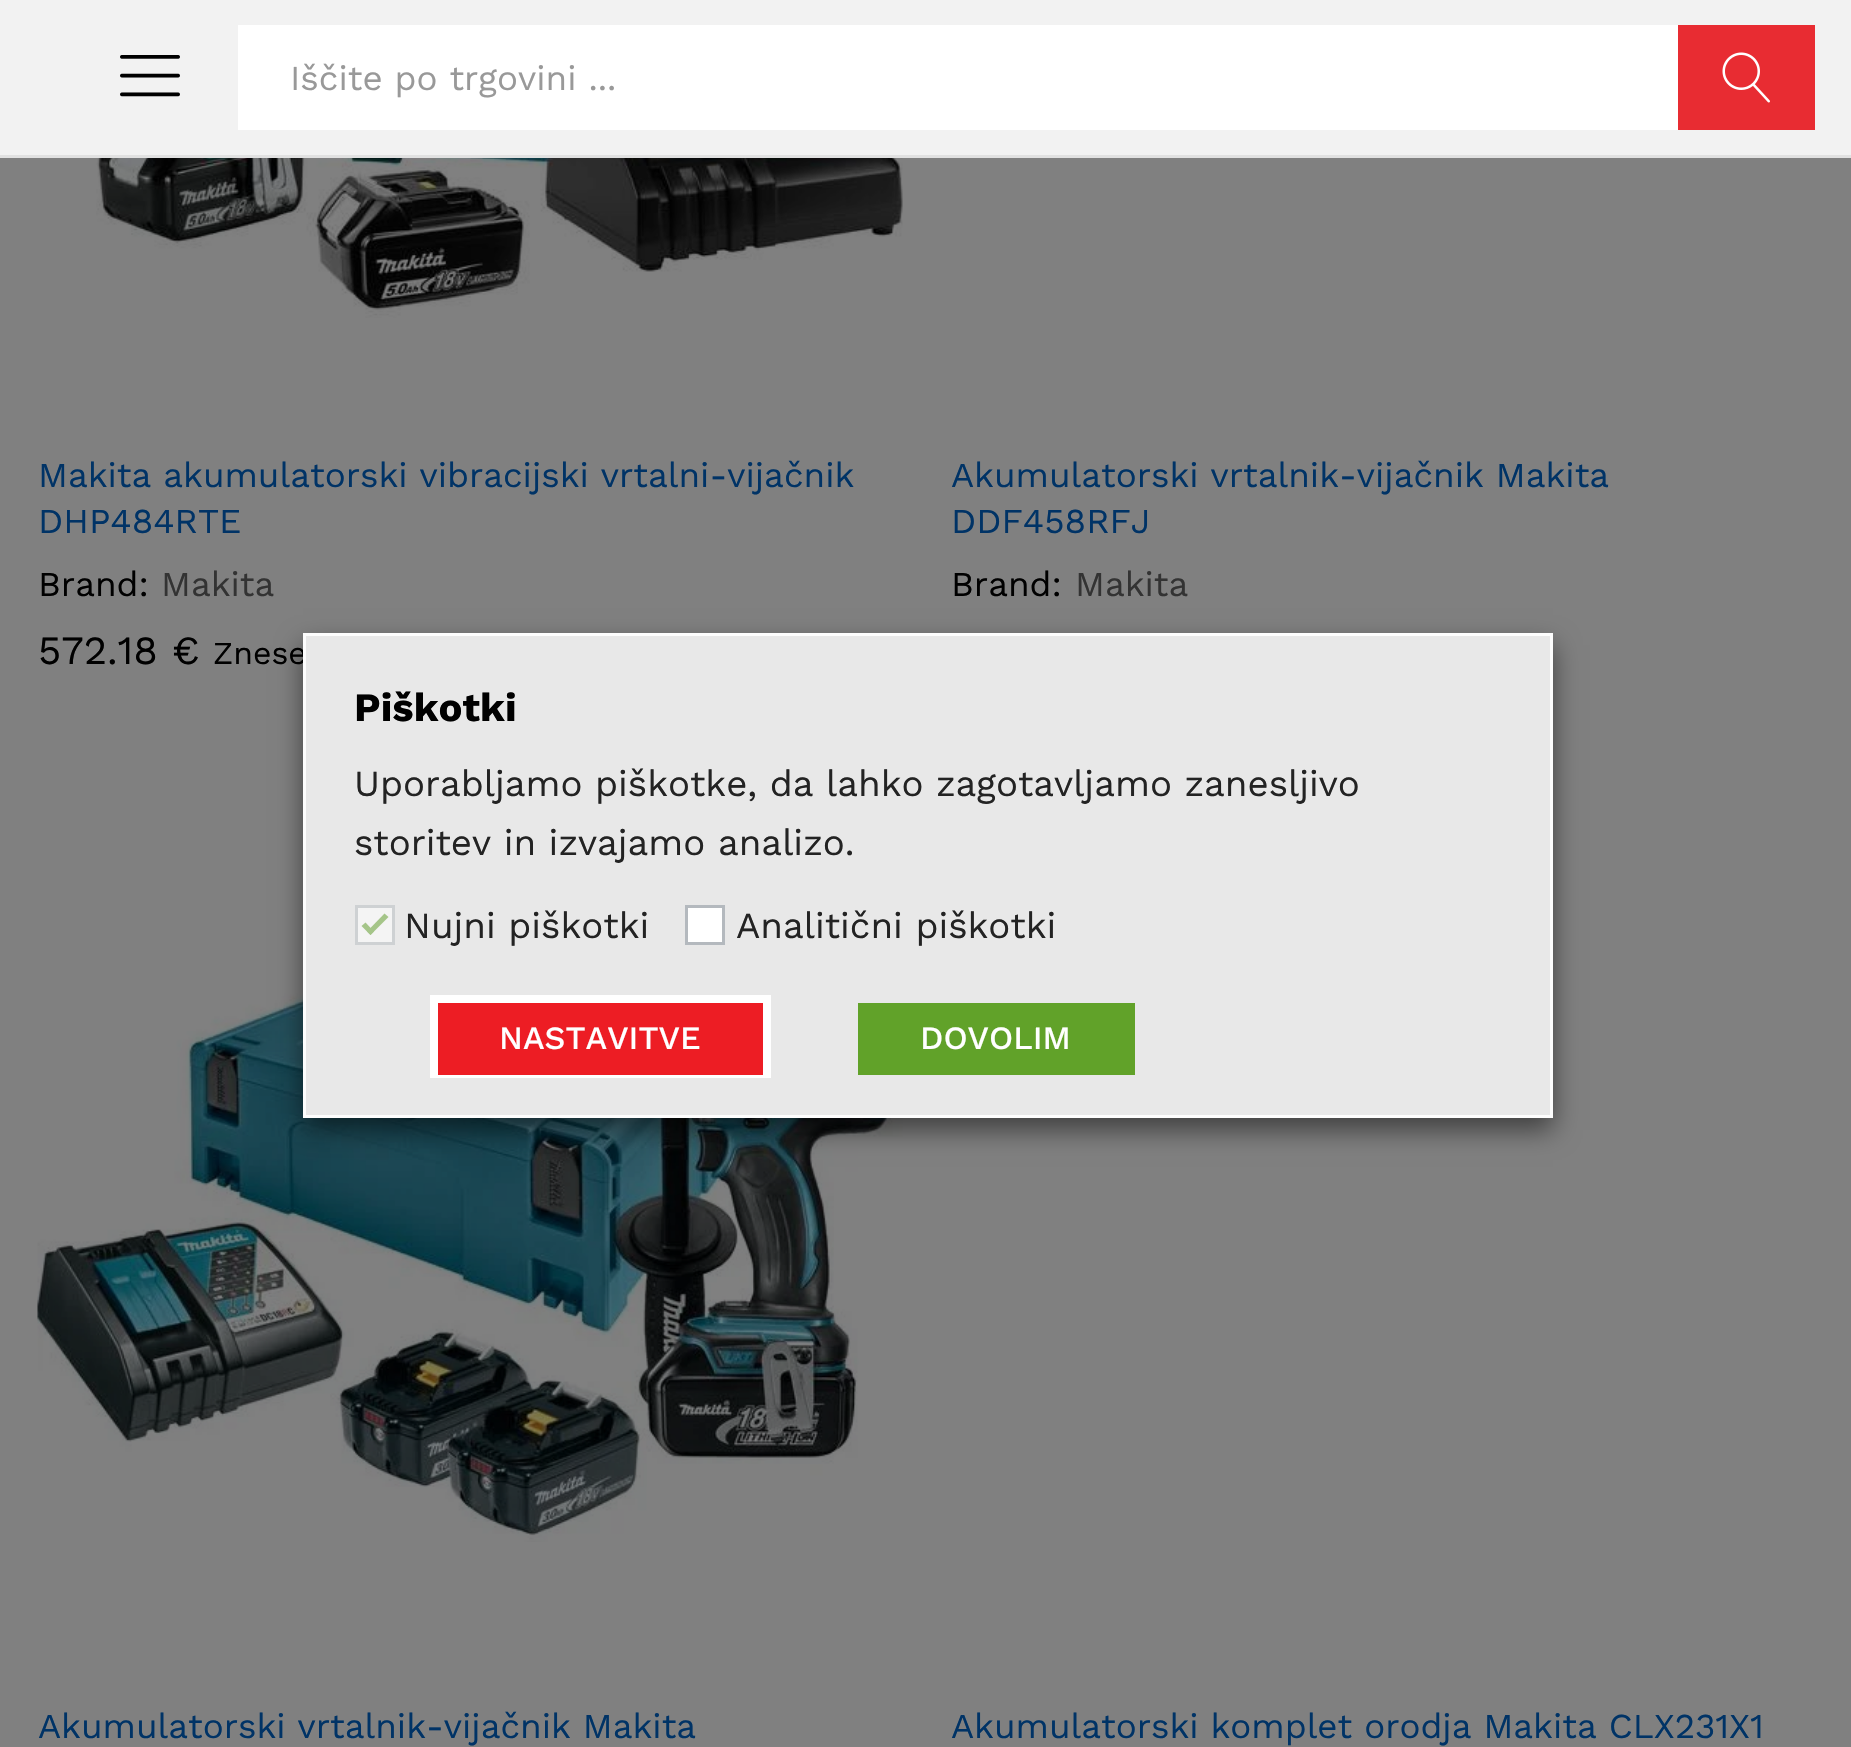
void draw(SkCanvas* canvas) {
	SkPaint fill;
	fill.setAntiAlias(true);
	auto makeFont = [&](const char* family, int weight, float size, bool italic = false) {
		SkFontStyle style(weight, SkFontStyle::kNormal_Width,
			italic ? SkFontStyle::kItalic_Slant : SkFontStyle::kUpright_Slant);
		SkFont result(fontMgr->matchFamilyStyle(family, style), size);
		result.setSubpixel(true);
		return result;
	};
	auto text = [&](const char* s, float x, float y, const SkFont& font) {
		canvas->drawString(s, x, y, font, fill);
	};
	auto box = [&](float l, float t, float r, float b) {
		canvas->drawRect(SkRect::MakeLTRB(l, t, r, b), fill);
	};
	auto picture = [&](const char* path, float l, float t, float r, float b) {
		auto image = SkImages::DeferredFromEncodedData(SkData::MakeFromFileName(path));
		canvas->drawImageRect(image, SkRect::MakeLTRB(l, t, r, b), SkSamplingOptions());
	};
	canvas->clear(0xFF808080);
	fill.setColor(0xFFF2F2F2);
	box(0, 0, 1851, 155);
	fill.setColor(0xFFE1E1E1);
	box(0, 155, 1851, 158);
	picture("image0.png", 120, 55, 180, 97);
	fill.setColor(0xFFFFFFFF);
	box(238, 25, 1678, 130);
	fill.setColor(0xFFE82C32);
	box(1678, 25, 1815, 130);
	picture("image1.png", 1722, 52, 1770, 103);
	picture("image2.png", 96, 158, 903, 318);
	picture("image3.png", 37, 944, 903, 1542);
	fill.setColor(0x80000000);
	fill.setMaskFilter(SkMaskFilter::MakeBlur(kNormal_SkBlurStyle, 12.5f));
	canvas->drawRect(SkRect::MakeLTRB(303, 645, 1553, 1130), fill);
	fill.setMaskFilter(nullptr);
	auto font1 = makeFont("Work Sans", 400, 35);
	fill.setColor(0xFF999999);
	text("Iščite po trgovini ...", 290, 90, font1);
	fill.setColor(0xFF003366);
	text("Makita akumulatorski vibracijski vrtalni-vijačnik", 38, 487, font1);
	text("DHP484RTE", 38, 533, font1);
	fill.setColor(0xFF000000);
	text("Brand:", 38, 596, font1);
	fill.setColor(0xFF333333);
	text("Makita", 161, 596, font1);
	auto font2 = makeFont("Work Sans", 400, 40);
	fill.setColor(0xFF000000);
	text("572.18 €", 38, 664, font2);
	auto font3 = makeFont("Work Sans", 400, 32);
	text("Znese", 213, 664, font3);
	fill.setColor(0xFF003366);
	text("Akumulatorski vrtalnik-vijačnik Makita", 951, 487, font1);
	text("DDF458RFJ", 951, 533, font1);
	fill.setColor(0xFF000000);
	text("Brand:", 951, 596, font1);
	fill.setColor(0xFF333333);
	text("Makita", 1075, 596, font1);
	fill.setColor(0xFF003366);
	text("Akumulatorski vrtalnik-vijačnik Makita", 38, 1738, font1);
	text("Akumulatorski komplet orodja Makita CLX231X1", 951, 1738, font1);
	fill.setColor(0xFFE8E8E8);
	canvas->drawRect(SkRect::MakeLTRB(304.5f, 634.5f, 1551.5f, 1116.5f), fill);
	fill.setStyle(SkPaint::kStroke_Style);
	fill.setStrokeWidth(3);
	fill.setColor(0xFFFDFDFD);
	canvas->drawRect(SkRect::MakeLTRB(304.5f, 634.5f, 1551.5f, 1116.5f), fill);
	auto font4 = makeFont("Work Sans", 700, 40);
	fill.setStyle(SkPaint::kFill_Style);
	fill.setColor(0xFF000000);
	text("Piškotki", 354, 721, font4);
	auto font5 = makeFont("Work Sans", 400, 36.7f);
	fill.setColor(0xFF232323);
	text("Uporabljamo piškotke, da lahko zagotavljamo zanesljivo", 354, 796, font5);
	text("storitev in izvajamo analizo.", 354, 855, font5);
	fill.setColor(0xFFF4F4F4);
	canvas->drawRect(SkRect::MakeLTRB(356.5f, 906.5f, 393.5f, 943.5f), fill);
	fill.setStyle(SkPaint::kStroke_Style);
	fill.setColor(0xFFCED1D3);
	canvas->drawRect(SkRect::MakeLTRB(356.5f, 906.5f, 393.5f, 943.5f), fill);
	fill.setStyle(SkPaint::kFill_Style);
	fill.setColor(0xFFA5C589);
	canvas->drawPath(SkPathBuilder().moveTo(384.5f, 913.5f).lineTo(388.5f, 917).lineTo(370.5f, 935).lineTo(367, 931.5f).close().detach(), fill);
	canvas->drawPath(SkPathBuilder().moveTo(365.5f, 922.5f).lineTo(374, 931.5f).lineTo(370.5f, 935).lineTo(361.5f, 926).close().detach(), fill);
	fill.setColor(0xFF232323);
	text("Nujni piškotki", 404, 938, font5);
	fill.setColor(0xFFFFFFFF);
	canvas->drawRect(SkRect::MakeLTRB(686.5f, 906.5f, 723.5f, 943.5f), fill);
	fill.setStyle(SkPaint::kStroke_Style);
	fill.setColor(0xFFB4B9BE);
	canvas->drawRect(SkRect::MakeLTRB(686.5f, 906.5f, 723.5f, 943.5f), fill);
	fill.setStyle(SkPaint::kFill_Style);
	fill.setColor(0xFF232323);
	text("Analitični piškotki", 736, 938, font5);
	fill.setColor(0xFFED1D24);
	box(438, 1003, 763, 1075);
	fill.setColor(0xFFFFFFFF);
	box(430, 995, 770, 1003);
	box(763, 995, 771, 1078);
	box(430, 1075, 770, 1078);
	box(430, 995, 438, 1078);
	auto font6 = makeFont("Work Sans", 500, 32.5f);
	text("NASTAVITVE", 499, 1049, font6);
	fill.setColor(0xFF61A229);
	box(858, 1003, 1135, 1075);
	fill.setColor(0xFFFFFFFF);
	text("DOVOLIM", 920, 1049, font6);
}
